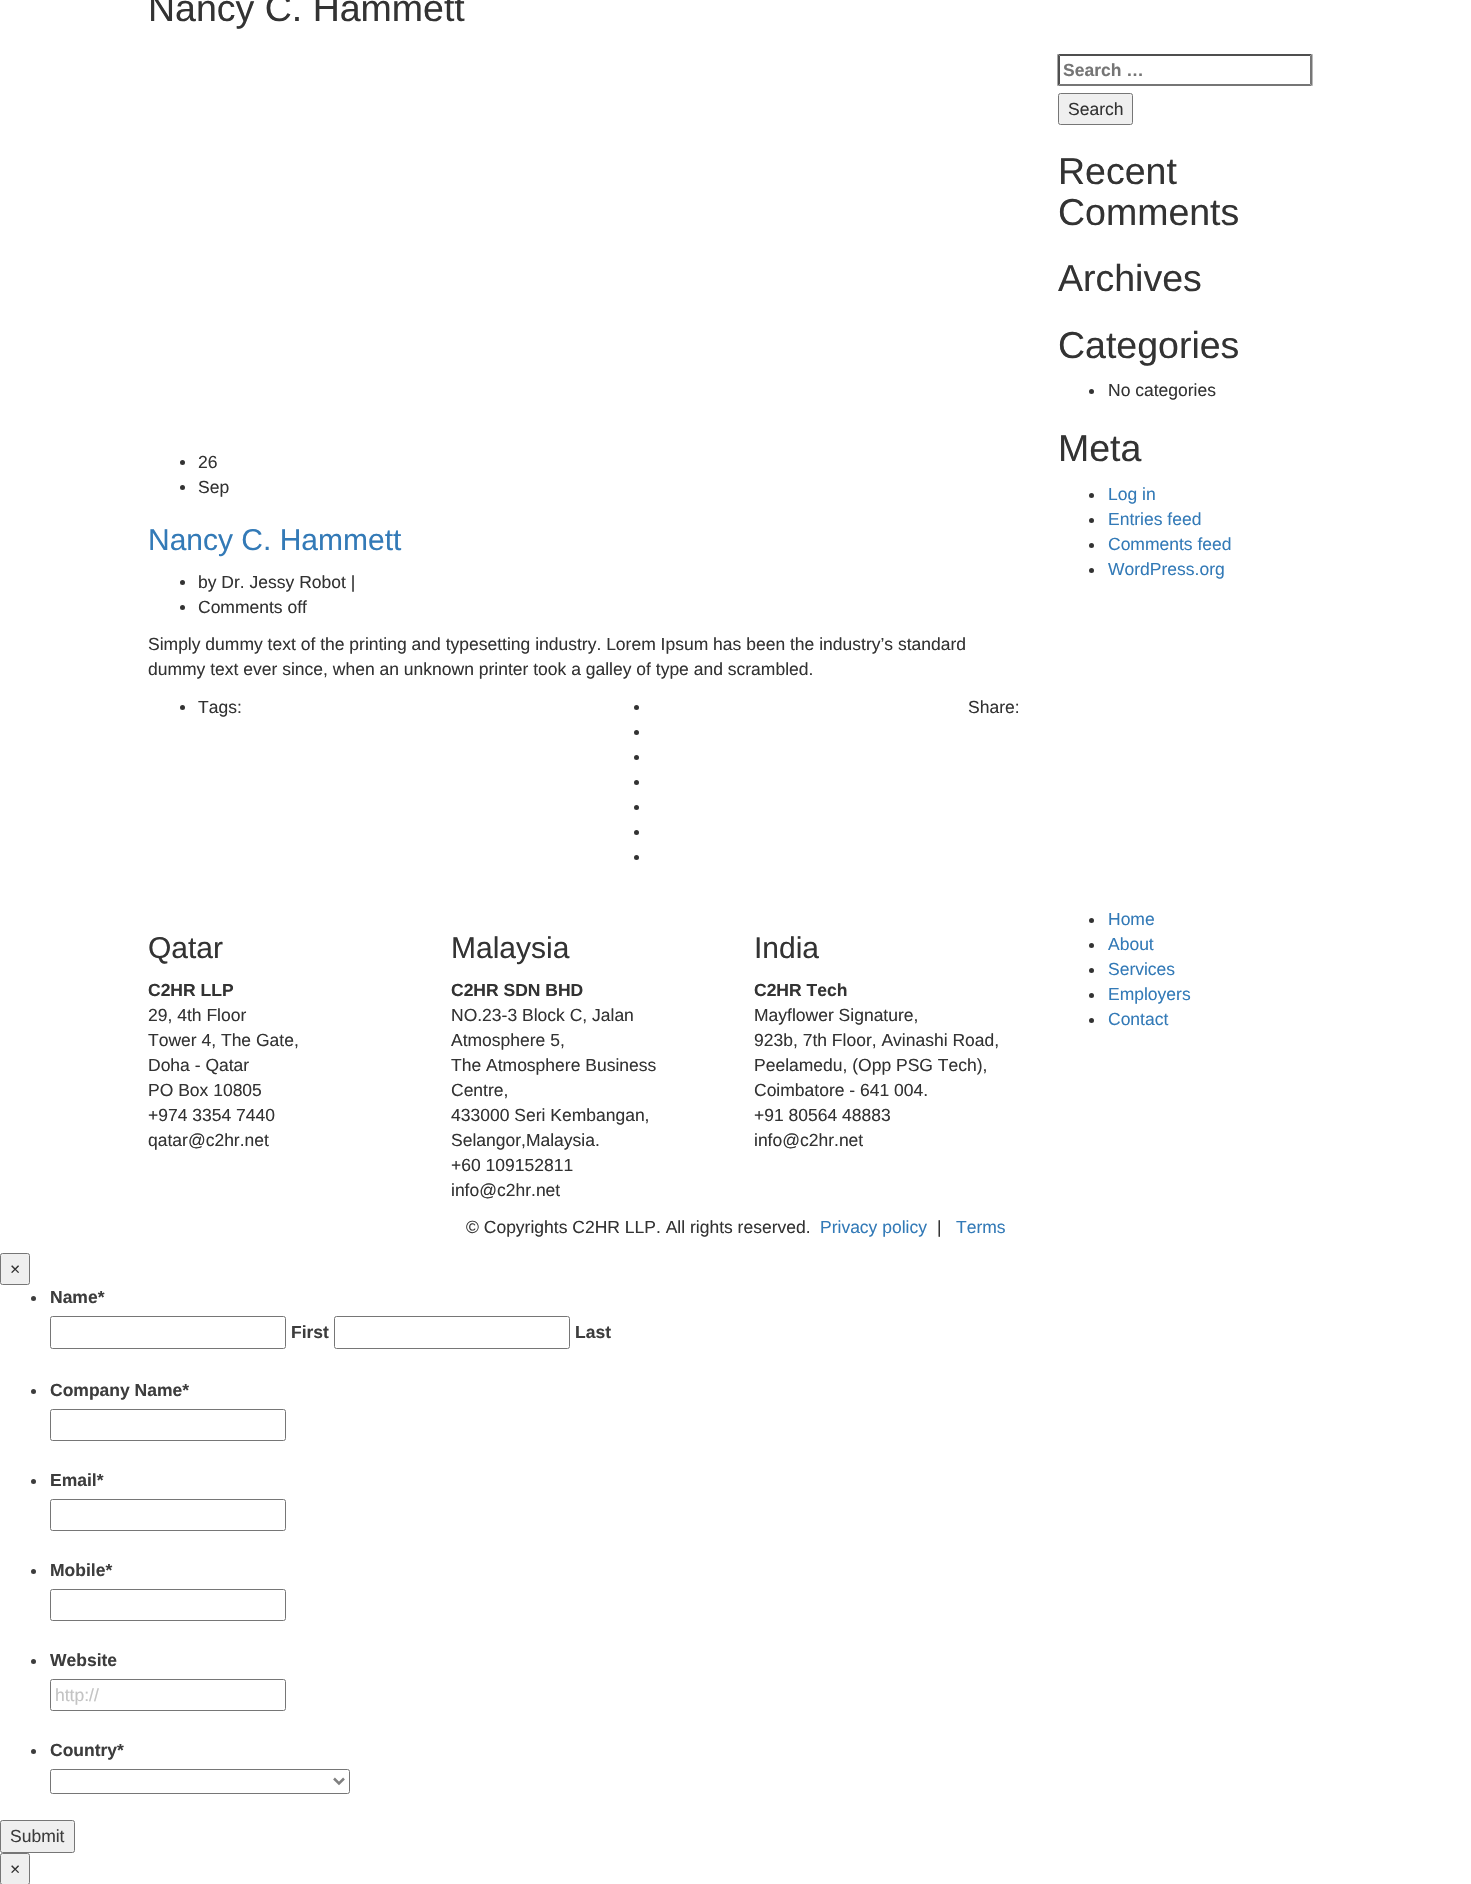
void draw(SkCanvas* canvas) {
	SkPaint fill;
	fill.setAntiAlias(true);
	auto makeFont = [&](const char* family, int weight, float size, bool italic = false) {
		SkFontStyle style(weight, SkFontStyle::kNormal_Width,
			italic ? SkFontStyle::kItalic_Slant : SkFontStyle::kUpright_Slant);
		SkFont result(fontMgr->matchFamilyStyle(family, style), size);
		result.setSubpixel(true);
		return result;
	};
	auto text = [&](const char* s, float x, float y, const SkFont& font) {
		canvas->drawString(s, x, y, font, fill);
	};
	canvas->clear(0xFFFFFFFF);
	fill.setColor(0xFF333333);
	canvas->drawCircle(182.5f, 462.5f, 2.5f, fill);
	canvas->drawCircle(182.5f, 487.5f, 2.5f, fill);
	canvas->drawCircle(182.5f, 582.5f, 2.5f, fill);
	canvas->drawCircle(182.5f, 607.5f, 2.5f, fill);
	canvas->drawCircle(182.5f, 707.5f, 2.5f, fill);
	canvas->drawCircle(636.5f, 707.5f, 2.5f, fill);
	canvas->drawCircle(636.5f, 732.5f, 2.5f, fill);
	canvas->drawCircle(636.5f, 757.5f, 2.5f, fill);
	canvas->drawCircle(636.5f, 782.5f, 2.5f, fill);
	canvas->drawCircle(636.5f, 807.5f, 2.5f, fill);
	canvas->drawCircle(636.5f, 832.5f, 2.5f, fill);
	canvas->drawCircle(636.5f, 857.5f, 2.5f, fill);
	fill.setColor(0xFF4F4F4F);
	canvas->drawPath(SkPathBuilder().moveTo(1058, 54).lineTo(1312, 54).lineTo(1310, 56).lineTo(1060, 56).close().detach(), fill);
	fill.setColor(0xFF767676);
	canvas->drawPath(SkPathBuilder().moveTo(1312.5f, 54).lineTo(1312.5f, 86).lineTo(1310, 84).lineTo(1310, 56).close().detach(), fill);
	canvas->drawPath(SkPathBuilder().moveTo(1312, 86).lineTo(1058, 86).lineTo(1060, 84).lineTo(1310, 84).close().detach(), fill);
	fill.setColor(0xFF4F4F4F);
	canvas->drawPath(SkPathBuilder().moveTo(1057.5f, 86).lineTo(1057.5f, 54).lineTo(1060, 56).lineTo(1060, 84).close().detach(), fill);
	fill.setColor(0xFFEFEFEF);
	canvas->drawRoundRect(SkRect::MakeLTRB(1058.5f, 93.5f, 1132.5f, 124.5f), 2, 2, fill);
	fill.setStyle(SkPaint::kStroke_Style);
	fill.setStrokeWidth(1);
	fill.setColor(0xFF767676);
	canvas->drawRoundRect(SkRect::MakeLTRB(1058.5f, 93.5f, 1132.5f, 124.5f), 2, 2, fill);
	fill.setStyle(SkPaint::kFill_Style);
	fill.setColor(0xFF333333);
	canvas->drawCircle(1091.5f, 391.5f, 2.5f, fill);
	canvas->drawCircle(1091.5f, 495.5f, 2.5f, fill);
	canvas->drawCircle(1091.5f, 520.5f, 2.5f, fill);
	canvas->drawCircle(1091.5f, 545.5f, 2.5f, fill);
	canvas->drawCircle(1091.5f, 570.5f, 2.5f, fill);
	canvas->drawCircle(1091.5f, 920.5f, 2.5f, fill);
	canvas->drawCircle(1091.5f, 945.5f, 2.5f, fill);
	canvas->drawCircle(1091.5f, 970.5f, 2.5f, fill);
	canvas->drawCircle(1091.5f, 995.5f, 2.5f, fill);
	canvas->drawCircle(1091.5f, 1020.5f, 2.5f, fill);
	fill.setColor(0xFFEFEFEF);
	canvas->drawRoundRect(SkRect::MakeLTRB(0.5f, 1253.5f, 29.5f, 1284.5f), 2, 2, fill);
	fill.setStyle(SkPaint::kStroke_Style);
	fill.setColor(0xFF767676);
	canvas->drawRoundRect(SkRect::MakeLTRB(0.5f, 1253.5f, 29.5f, 1284.5f), 2, 2, fill);
	fill.setStyle(SkPaint::kFill_Style);
	fill.setColor(0xFF3D3D3D);
	canvas->drawCircle(33.5f, 1298.5f, 2.5f, fill);
	fill.setStyle(SkPaint::kStroke_Style);
	fill.setColor(0xFF767676);
	canvas->drawRoundRect(SkRect::MakeLTRB(50.5f, 1316.5f, 285.5f, 1348.5f), 2, 2, fill);
	canvas->drawRoundRect(SkRect::MakeLTRB(334.5f, 1316.5f, 569.5f, 1348.5f), 2, 2, fill);
	fill.setStyle(SkPaint::kFill_Style);
	fill.setColor(0xFF3D3D3D);
	canvas->drawCircle(33.5f, 1391.5f, 2.5f, fill);
	fill.setStyle(SkPaint::kStroke_Style);
	fill.setColor(0xFF767676);
	canvas->drawRoundRect(SkRect::MakeLTRB(50.5f, 1409.5f, 285.5f, 1440.5f), 2, 2, fill);
	fill.setStyle(SkPaint::kFill_Style);
	fill.setColor(0xFF3D3D3D);
	canvas->drawCircle(33.5f, 1481.5f, 2.5f, fill);
	fill.setStyle(SkPaint::kStroke_Style);
	fill.setColor(0xFF767676);
	canvas->drawRoundRect(SkRect::MakeLTRB(50.5f, 1499.5f, 285.5f, 1530.5f), 2, 2, fill);
	fill.setStyle(SkPaint::kFill_Style);
	fill.setColor(0xFF3D3D3D);
	canvas->drawCircle(33.5f, 1571.5f, 2.5f, fill);
	fill.setStyle(SkPaint::kStroke_Style);
	fill.setColor(0xFF767676);
	canvas->drawRoundRect(SkRect::MakeLTRB(50.5f, 1589.5f, 285.5f, 1620.5f), 2, 2, fill);
	fill.setStyle(SkPaint::kFill_Style);
	fill.setColor(0xFF3D3D3D);
	canvas->drawCircle(33.5f, 1661.5f, 2.5f, fill);
	fill.setStyle(SkPaint::kStroke_Style);
	fill.setColor(0xFF767676);
	canvas->drawRoundRect(SkRect::MakeLTRB(50.5f, 1679.5f, 285.5f, 1710.5f), 2, 2, fill);
	fill.setStyle(SkPaint::kFill_Style);
	fill.setColor(0xFF3D3D3D);
	canvas->drawCircle(33.5f, 1751.5f, 2.5f, fill);
	fill.setStyle(SkPaint::kStroke_Style);
	fill.setColor(0xFF767676);
	canvas->drawRoundRect(SkRect::MakeLTRB(50.5f, 1769.5f, 349.5f, 1793.5f), 2, 2, fill);
	fill.setStrokeWidth(2.5f);
	fill.setColor(0xFF808080);
	canvas->drawPath(SkPathBuilder().moveTo(334, 1778.5f).lineTo(339, 1783.5f).lineTo(344, 1778.5f).detach(), fill);
	fill.setStyle(SkPaint::kFill_Style);
	fill.setColor(0xFFEFEFEF);
	canvas->drawRoundRect(SkRect::MakeLTRB(0.5f, 1820.5f, 74.5f, 1852.5f), 2, 2, fill);
	fill.setStyle(SkPaint::kStroke_Style);
	fill.setStrokeWidth(1);
	fill.setColor(0xFF767676);
	canvas->drawRoundRect(SkRect::MakeLTRB(0.5f, 1820.5f, 74.5f, 1852.5f), 2, 2, fill);
	fill.setStyle(SkPaint::kFill_Style);
	fill.setColor(0xFFEFEFEF);
	canvas->drawRoundRect(SkRect::MakeLTRB(0.5f, 1853.5f, 29.5f, 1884.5f), 2, 2, fill);
	fill.setStyle(SkPaint::kStroke_Style);
	fill.setColor(0xFF767676);
	canvas->drawRoundRect(SkRect::MakeLTRB(0.5f, 1853.5f, 29.5f, 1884.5f), 2, 2, fill);
	auto font1 = makeFont("Liberation Sans", 400, 37.5f);
	fill.setStyle(SkPaint::kFill_Style);
	fill.setColor(0xFF333333);
	text("Nancy C. Hammett", 148, 21, font1);
	auto font2 = makeFont("Liberation Sans", 400, 17.5f);
	text("26", 198, 468, font2);
	text("Sep", 198, 493, font2);
	auto font3 = makeFont("Liberation Sans", 400, 30);
	fill.setColor(0xFF337AB7);
	text("Nancy C. Hammett", 148, 550, font3);
	fill.setColor(0xFF333333);
	text("by Dr. Jessy Robot |", 198, 588, font2);
	text("Comments off", 198, 613, font2);
	text("Simply dummy text of the printing and typesetting industry. Lorem Ipsum has been the industry’s standard", 148, 650, font2);
	text("dummy text ever since, when an unknown printer took a galley of type and scrambled.", 148, 675, font2);
	text("Tags:", 198, 713, font2);
	text("Share:", 968, 713, font2);
	auto font4 = makeFont("Liberation Sans", 700, 17.5f);
	fill.setColor(0xFF757575);
	text("Search …", 1063, 76, font4);
	fill.setColor(0xFF333333);
	text("Search", 1068, 115, font2);
	text("Recent", 1058, 184, font1);
	text("Comments", 1058, 225, font1);
	text("Archives", 1058, 291, font1);
	text("Categories", 1058, 358, font1);
	text("No categories", 1108, 396, font2);
	text("Meta", 1058, 461, font1);
	fill.setColor(0xFF337AB7);
	text("Log in", 1108, 500, font2);
	text("Entries feed", 1108, 525, font2);
	text("Comments feed", 1108, 550, font2);
	text("WordPress.org", 1108, 575, font2);
	fill.setColor(0xFF333333);
	text("Qatar", 148, 958, font3);
	text("C2HR LLP", 148, 996, font4);
	text("29, 4th Floor", 148, 1021, font2);
	text("Tower 4, The Gate,", 148, 1046, font2);
	text("Doha - Qatar", 148, 1071, font2);
	text("PO Box 10805", 148, 1096, font2);
	text("+974 3354 7440", 148, 1121, font2);
	text("qatar@c2hr.net", 148, 1146, font2);
	text("Malaysia", 451, 958, font3);
	text("C2HR SDN BHD", 451, 996, font4);
	text("NO.23-3 Block C, Jalan", 451, 1021, font2);
	text("Atmosphere 5,", 451, 1046, font2);
	text("The Atmosphere Business", 451, 1071, font2);
	text("Centre,", 451, 1096, font2);
	text("433000 Seri Kembangan,", 451, 1121, font2);
	text("Selangor,Malaysia.", 451, 1146, font2);
	text("+60 109152811", 451, 1171, font2);
	text("info@c2hr.net", 451, 1196, font2);
	text("India", 754, 958, font3);
	text("C2HR Tech", 754, 996, font4);
	text("Mayflower Signature,", 754, 1021, font2);
	text("923b, 7th Floor, Avinashi Road,", 754, 1046, font2);
	text("Peelamedu, (Opp PSG Tech),", 754, 1071, font2);
	text("Coimbatore - 641 004.", 754, 1096, font2);
	text("+91 80564 48883", 754, 1121, font2);
	text("info@c2hr.net", 754, 1146, font2);
	fill.setColor(0xFF337AB7);
	text("Home", 1108, 925, font2);
	text("About", 1108, 950, font2);
	text("Services", 1108, 975, font2);
	text("Employers", 1108, 1000, font2);
	text("Contact", 1108, 1025, font2);
	fill.setColor(0xFF333333);
	text("© Copyrights C2HR LLP. All rights reserved.", 466, 1233, font2);
	fill.setColor(0xFF337AB7);
	text("Privacy policy", 820, 1233, font2);
	fill.setColor(0xFF333333);
	text("|", 937, 1233, font2);
	fill.setColor(0xFF337AB7);
	text("Terms", 956, 1233, font2);
	fill.setColor(0xFF333333);
	text("×", 10, 1275, font2);
	fill.setColor(0xFF3D3D3D);
	text("Name*", 50, 1303, font4);
	text("First", 291, 1338, font4);
	text("Last", 575, 1338, font4);
	text("Company Name*", 50, 1396, font4);
	text("Email*", 50, 1486, font4);
	text("Mobile*", 50, 1576, font4);
	text("Website", 50, 1666, font4);
	fill.setColor(0xFFC3C3C3);
	text("http://", 55, 1701, font2);
	fill.setColor(0xFF3D3D3D);
	text("Country*", 50, 1756, font4);
	text("Submit", 10, 1842, font2);
	fill.setColor(0xFF333333);
	text("×", 10, 1875, font2);
}
